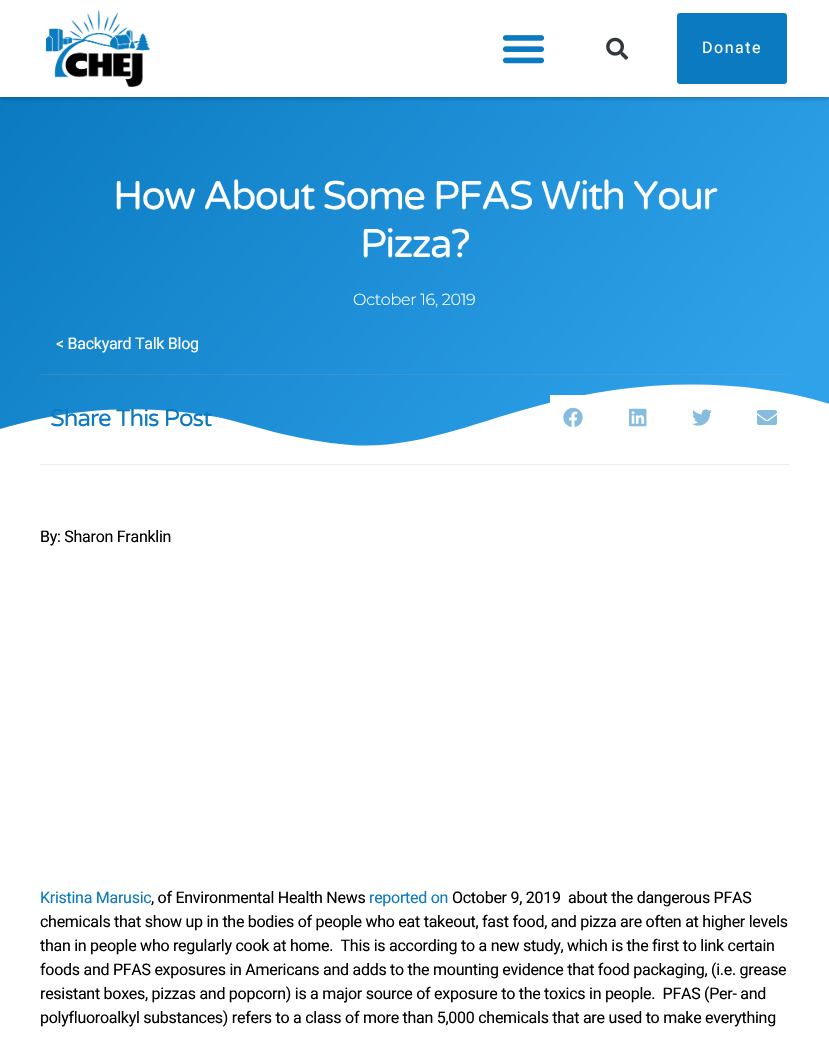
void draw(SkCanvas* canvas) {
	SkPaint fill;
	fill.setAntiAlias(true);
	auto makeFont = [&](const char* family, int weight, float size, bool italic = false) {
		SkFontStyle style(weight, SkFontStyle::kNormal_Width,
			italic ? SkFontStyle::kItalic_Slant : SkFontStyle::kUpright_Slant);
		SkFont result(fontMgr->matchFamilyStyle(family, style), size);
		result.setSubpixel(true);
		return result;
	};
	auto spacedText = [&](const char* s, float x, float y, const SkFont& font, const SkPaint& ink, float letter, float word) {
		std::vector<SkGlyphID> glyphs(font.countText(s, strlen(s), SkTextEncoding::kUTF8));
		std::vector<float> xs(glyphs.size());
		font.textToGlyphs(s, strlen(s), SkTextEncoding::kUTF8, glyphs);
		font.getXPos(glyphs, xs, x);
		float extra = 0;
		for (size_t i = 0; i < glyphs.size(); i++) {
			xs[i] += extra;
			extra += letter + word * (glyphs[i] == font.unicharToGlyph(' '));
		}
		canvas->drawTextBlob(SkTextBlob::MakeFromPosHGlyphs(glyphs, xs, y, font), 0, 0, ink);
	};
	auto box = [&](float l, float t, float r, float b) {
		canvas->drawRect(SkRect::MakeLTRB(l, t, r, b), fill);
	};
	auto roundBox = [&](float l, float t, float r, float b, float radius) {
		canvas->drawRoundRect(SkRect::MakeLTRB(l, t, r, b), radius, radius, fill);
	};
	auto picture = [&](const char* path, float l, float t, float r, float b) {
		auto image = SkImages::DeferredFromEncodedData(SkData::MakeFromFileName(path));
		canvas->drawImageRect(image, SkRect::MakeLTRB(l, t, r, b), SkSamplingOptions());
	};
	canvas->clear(0xFFFFFFFF);
	{
		const SkColor colors[] = {0xFF0B7AC0, 0xFF2FA2EA};
		const float stops[] = {0, 0.89f};
		const SkPoint ends[] = {{85, -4.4f}, {744, 548}};
		fill.setShader(SkGradientShader::MakeLinear(ends, colors, stops, 2, SkTileMode::kClamp));
		fill.setAlpha(255);
	}
	box(0, 97, 829, 446);
	canvas->save();
	canvas->clipRect(SkRect::MakeLTRB(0, 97, 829, 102));
	fill.setShader(nullptr);
	fill.setColor(0x33000000);
	fill.setMaskFilter(SkMaskFilter::MakeBlur(kNormal_SkBlurStyle, 2));
	canvas->drawRect(SkRect::MakeLTRB(0, 2, 829, 99), fill);
	fill.setMaskFilter(nullptr);
	canvas->restore();
	picture("image0.png", 46, 10, 150, 87);
	picture("image1.png", 502, 35, 545, 64);
	picture("image2.png", 606, 37, 629, 60);
	fill.setColor(0xFF0B7AC0);
	roundBox(677, 13, 787, 84, 3);
	{
		const SkColor colors[] = {0xFF2982BC, 0xFF45A2DE};
		const float stops[] = {0, 0.89f};
		const SkPoint ends[] = {{85, -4.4f}, {744, 548}};
		fill.setShader(SkGradientShader::MakeLinear(ends, colors, stops, 2, SkTileMode::kClamp));
		fill.setAlpha(255);
	}
	box(40, 374, 790, 375);
	canvas->save();
	canvas->clipRect(SkRect::MakeLTRB(0, 383, 829, 448));
	fill.setShader(nullptr);
	fill.setColor(0xFFFFFFFF);
	canvas->drawPath(SkPathBuilder().moveTo(350, 445).cubicTo(416, 450, 478, 421, 541, 405).cubicTo(634, 380, 737, 376, 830, 404).lineTo(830, 449).lineTo(0, 449).lineTo(0, 429).cubicTo(13, 425, 26, 422, 39, 419).cubicTo(100, 406, 169, 406, 230, 420).lineTo(274, 432).cubicTo(299, 438, 324, 443, 350, 445).close().detach(), fill);
	canvas->restore();
	fill.setColor(0xFFECEDEF);
	box(40, 464, 790, 465);
	fill.setColor(0xFFFFFFFF);
	box(550, 395, 585, 403);
	picture("image3.png", 563, 407, 583, 427);
	picture("image4.png", 629, 408, 647, 427);
	picture("image5.png", 692, 409, 712, 426);
	picture("image6.png", 757, 410, 777, 425);
	auto font1 = makeFont("Roboto", 400, 16);
	spacedText("Donate", 702, 53, font1, fill, 1.5f, 0);
	auto font2 = makeFont("Varela Round", 400, 40);
	spacedText("How About Some PFAS With Your", 113, 209, font2, fill, -1.65f, 0);
	spacedText("Pizza?", 360, 257, font2, fill, -1.65f, 0);
	auto font3 = makeFont("Montserrat", 300, 16);
	spacedText("October 16, 2019", 353, 305, font3, fill, -0.27f, 0);
	spacedText("< Backyard Talk Blog", 56, 349, font1, fill, -0.27f, 0);
	auto font4 = makeFont("Varela Round", 400, 24);
	fill.setColor(0xFF0B7AC0);
	spacedText("Share This Post", 50, 426, font4, fill, -1, 0);
	fill.setColor(0xFF000000);
	spacedText("By: Sharon Franklin", 40, 542, font1, fill, -0.27f, 0);
	fill.setColor(0xFF0B7AC0);
	spacedText("Kristina Marusic", 40, 903, font1, fill, -0.27f, 0);
	fill.setColor(0xFF000000);
	spacedText(", of Environmental Health News", 151, 903, font1, fill, -0.27f, 0);
	fill.setColor(0xFF0B7AC0);
	spacedText("reported on", 369, 903, font1, fill, -0.27f, 0);
	fill.setColor(0xFF000000);
	spacedText("October 9, 2019  about the dangerous PFAS", 452, 903, font1, fill, -0.27f, 0);
	spacedText("chemicals that show up in the bodies of people who eat takeout, fast food, and pizza are often at higher levels", 40, 927, font1, fill, -0.27f, 0);
	spacedText("than in people who regularly cook at home.  This is according to a new study, which is the first to link certain", 40, 951, font1, fill, -0.27f, 0);
	spacedText("foods and PFAS exposures in Americans and adds to the mounting evidence that food packaging, (i.e. grease", 40, 975, font1, fill, -0.27f, 0);
	spacedText("resistant boxes, pizzas and popcorn) is a major source of exposure to the toxics in people.  PFAS (Per- and", 40, 999, font1, fill, -0.27f, 0);
	spacedText("polyfluoroalkyl substances) refers to a class of more than 5,000 chemicals that are used to make everything", 40, 1023, font1, fill, -0.27f, 0);
}
